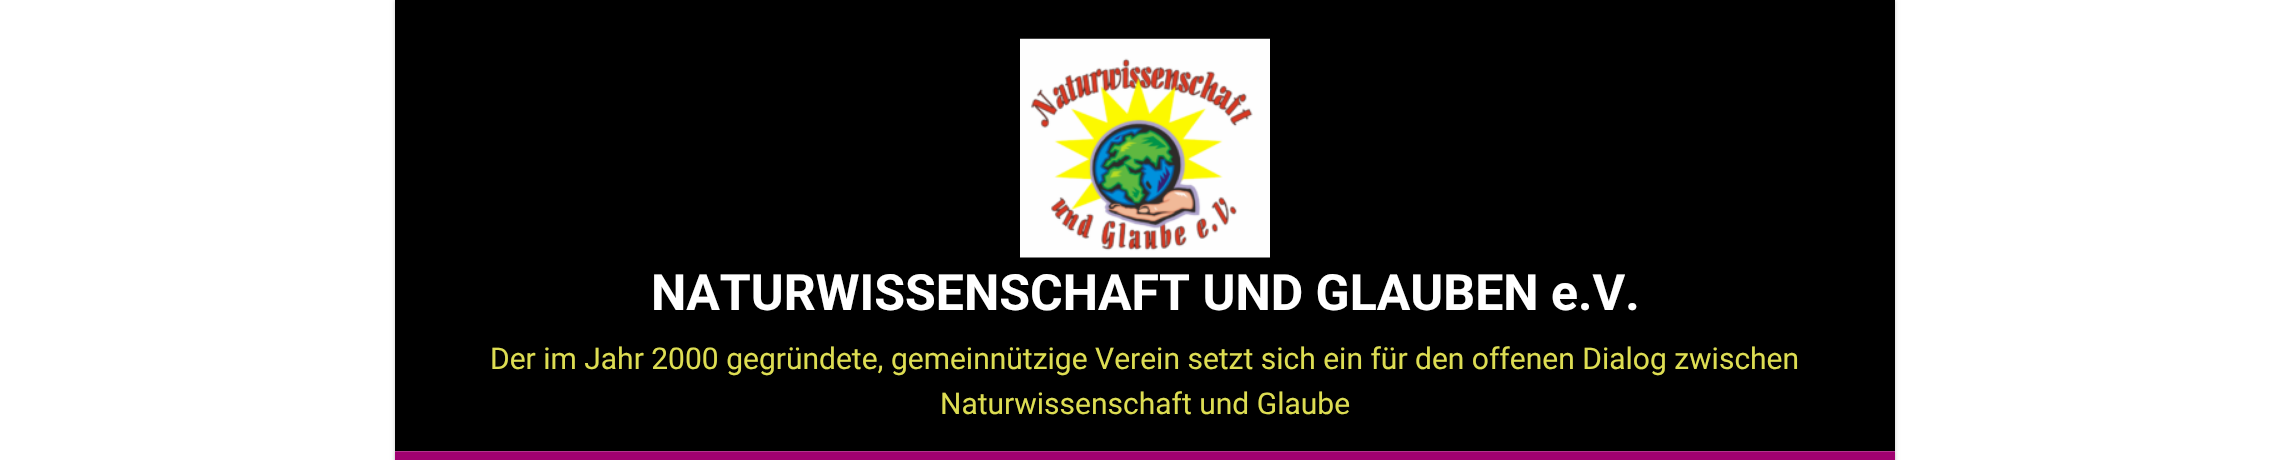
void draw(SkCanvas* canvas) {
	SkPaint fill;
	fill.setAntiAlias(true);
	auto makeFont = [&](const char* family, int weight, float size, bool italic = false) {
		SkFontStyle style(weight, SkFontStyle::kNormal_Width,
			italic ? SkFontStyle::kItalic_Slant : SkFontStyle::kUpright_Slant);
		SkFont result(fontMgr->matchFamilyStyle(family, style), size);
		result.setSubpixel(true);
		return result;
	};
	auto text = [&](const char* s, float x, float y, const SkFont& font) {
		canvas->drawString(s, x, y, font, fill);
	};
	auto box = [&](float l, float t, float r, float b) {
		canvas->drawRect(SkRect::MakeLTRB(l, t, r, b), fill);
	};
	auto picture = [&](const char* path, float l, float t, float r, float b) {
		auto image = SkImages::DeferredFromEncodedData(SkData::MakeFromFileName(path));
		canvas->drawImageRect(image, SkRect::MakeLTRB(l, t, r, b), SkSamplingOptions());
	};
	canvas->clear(0xFFFFFFFF);
	fill.setColor(0x33000000);
	fill.setMaskFilter(SkMaskFilter::MakeBlur(kNormal_SkBlurStyle, 2));
	canvas->drawRect(SkRect::MakeLTRB(395, 0, 1895, 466), fill);
	fill.setMaskFilter(nullptr);
	fill.setColor(0xFF000000);
	box(395, 0, 1895, 451);
	picture("image0.png", 1020, 38, 1270, 258);
	fill.setColor(0x1A000000);
	fill.setMaskFilter(SkMaskFilter::MakeBlur(kNormal_SkBlurStyle, 1));
	canvas->drawRect(SkRect::MakeLTRB(395, 453, 1895, 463), fill);
	fill.setMaskFilter(nullptr);
	{
		const SkColor colors[] = {0xFFA00170, 0xFF940064};
		const float stops[] = {0.5f, 1};
		const SkPoint ends[] = {{1145, 451}, {1145, 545}};
		fill.setShader(SkGradientShader::MakeLinear(ends, colors, stops, 2, SkTileMode::kClamp));
		fill.setAlpha(255);
	}
	box(395, 452, 1895, 460);
	fill.setShader(nullptr);
	fill.setColor(0xFFB3348D);
	box(395, 451, 1895, 452);
	auto font1 = makeFont("Roboto", 700, 50);
	fill.setColor(0xFFFFFFFF);
	text("NATURWISSENSCHAFT UND GLAUBEN e.V.", 651, 310, font1);
	auto font2 = makeFont("Roboto", 400, 30);
	fill.setColor(0xFFDDDD52);
	text("Der im Jahr 2000 gegründete, gemeinnützige Verein setzt sich ein für den offenen Dialog zwischen", 490, 369, font2);
	text("Naturwissenschaft und Glaube", 940, 414, font2);
}
